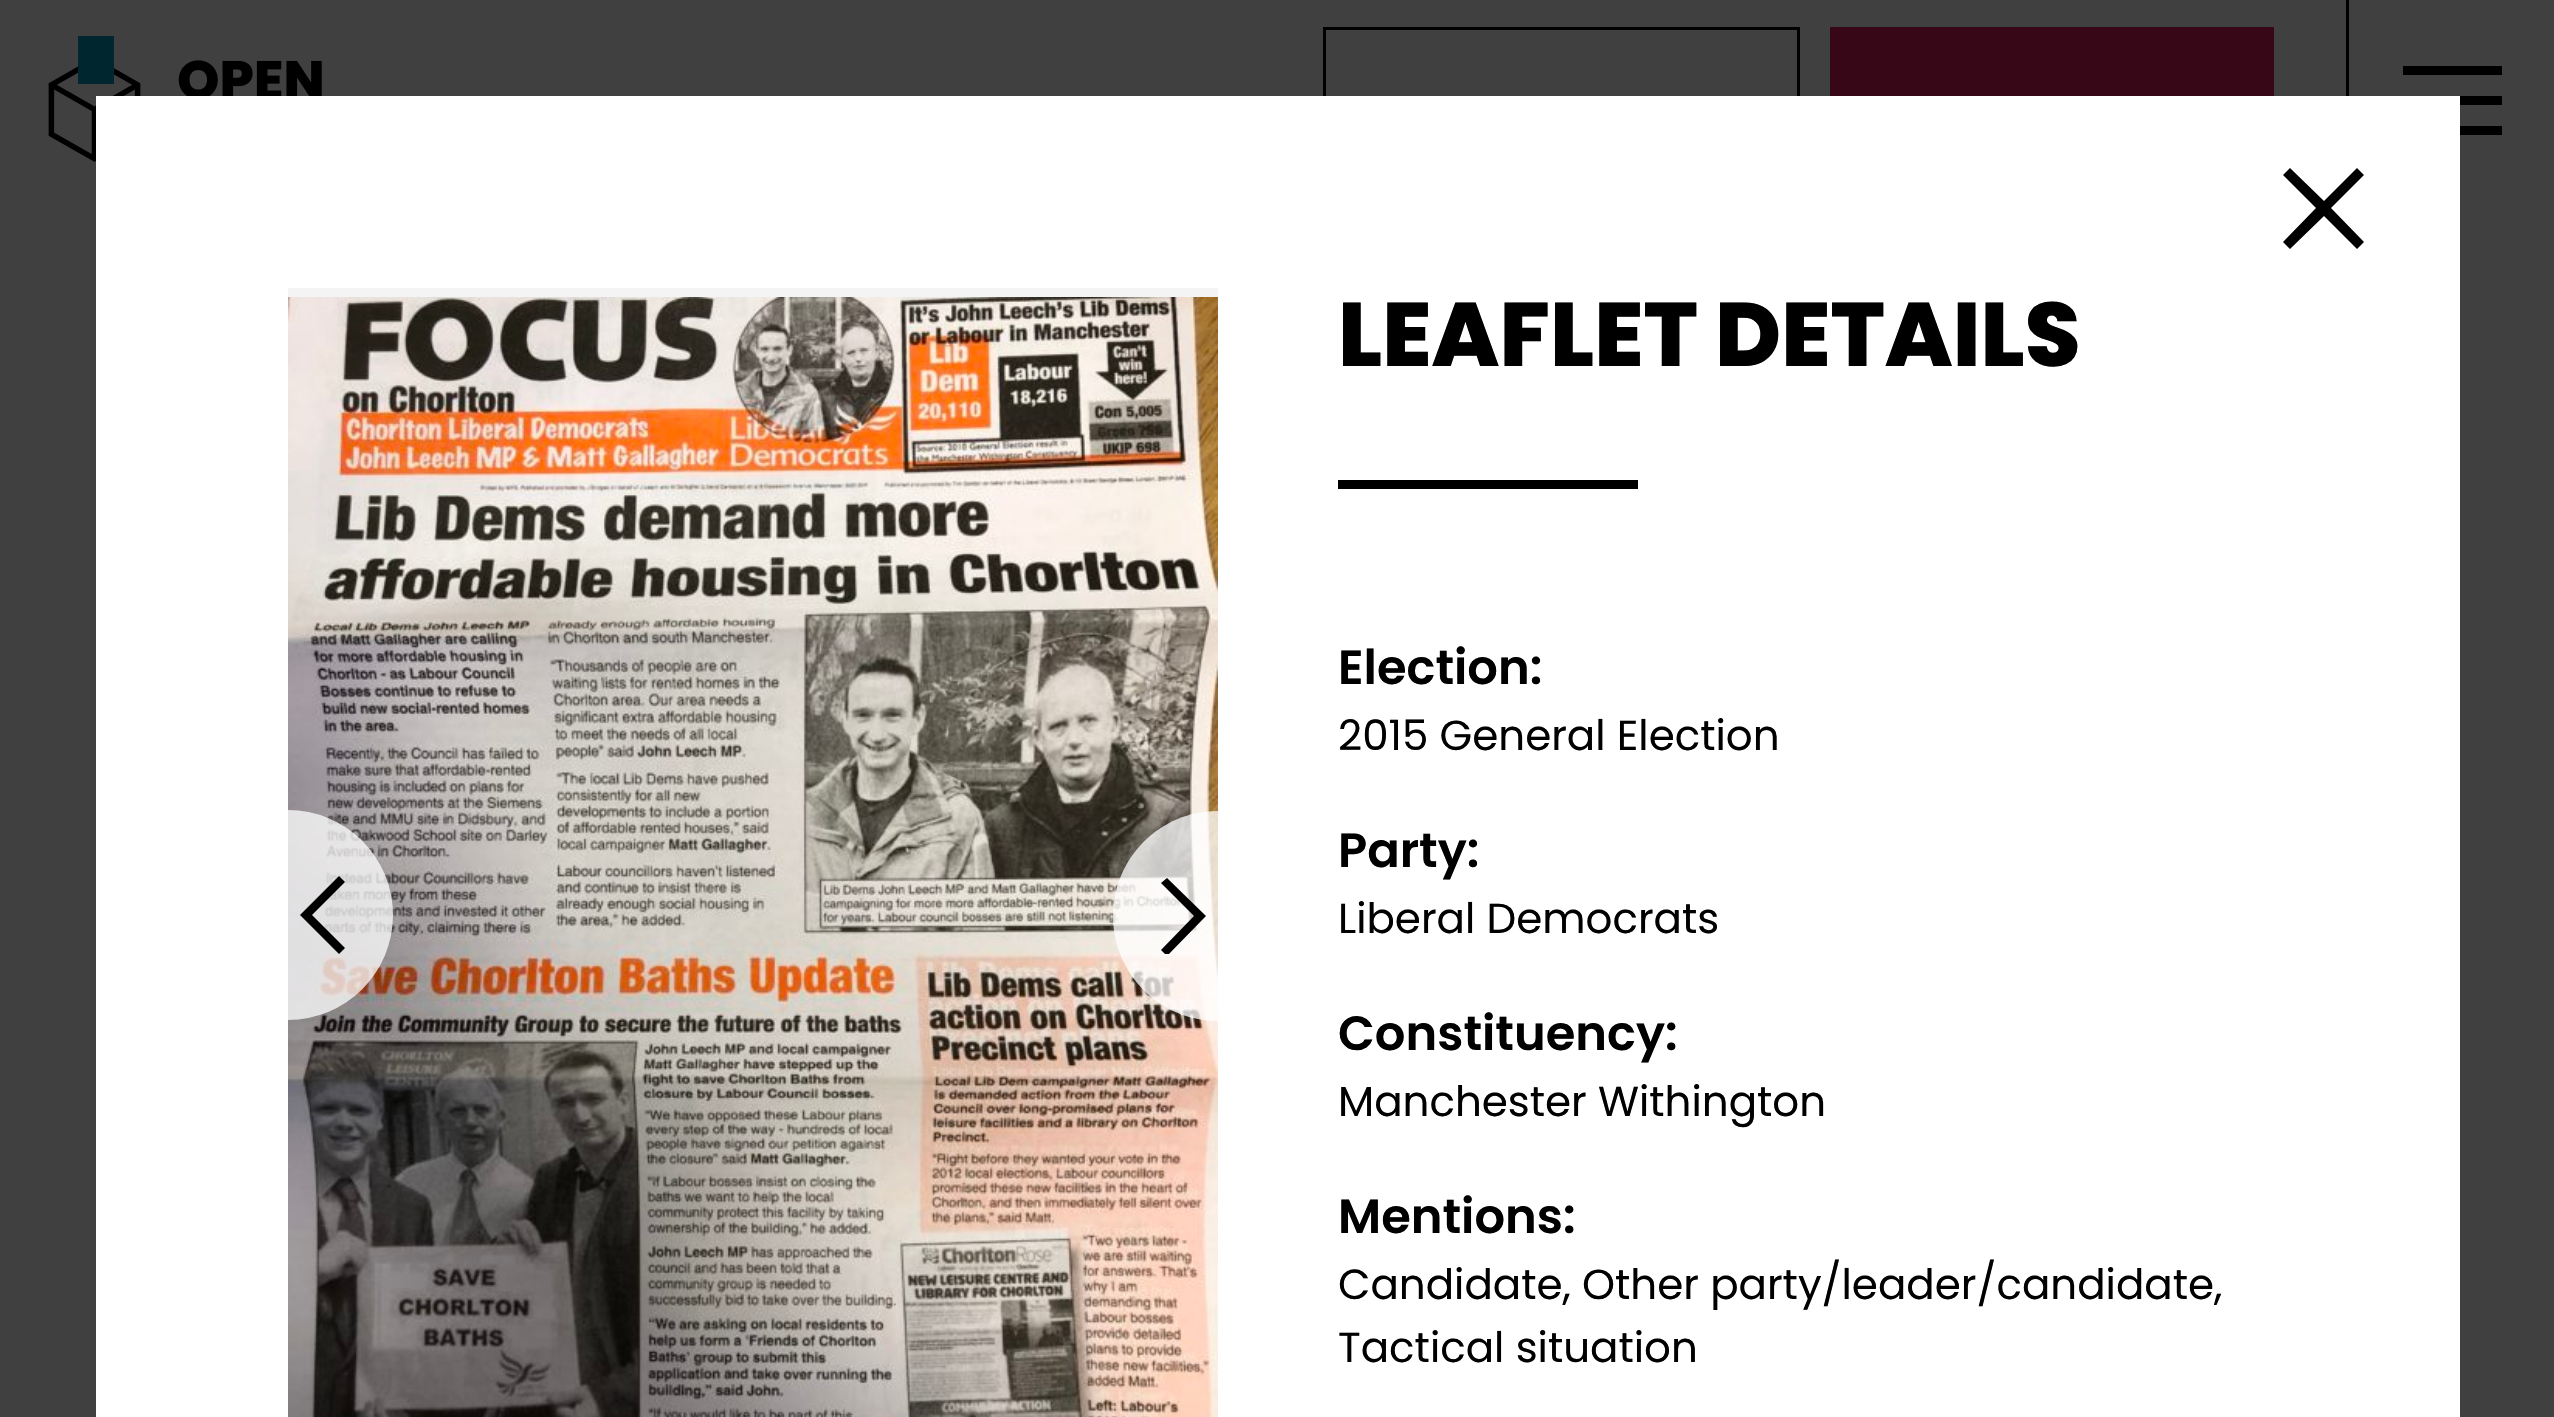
void draw(SkCanvas* canvas) {
	SkPaint fill;
	fill.setAntiAlias(true);
	auto makeFont = [&](const char* family, int weight, float size, bool italic = false) {
		SkFontStyle style(weight, SkFontStyle::kNormal_Width,
			italic ? SkFontStyle::kItalic_Slant : SkFontStyle::kUpright_Slant);
		SkFont result(fontMgr->matchFamilyStyle(family, style), size);
		result.setSubpixel(true);
		return result;
	};
	auto text = [&](const char* s, float x, float y, const SkFont& font) {
		canvas->drawString(s, x, y, font, fill);
	};
	auto box = [&](float l, float t, float r, float b) {
		canvas->drawRect(SkRect::MakeLTRB(l, t, r, b), fill);
	};
	auto picture = [&](const char* path, float l, float t, float r, float b) {
		auto image = SkImages::DeferredFromEncodedData(SkData::MakeFromFileName(path));
		canvas->drawImageRect(image, SkRect::MakeLTRB(l, t, r, b), SkSamplingOptions());
	};
	canvas->clear(0xFF404040);
	picture("image0.png", 48, 36, 322, 162);
	fill.setStyle(SkPaint::kStroke_Style);
	fill.setStrokeWidth(3);
	fill.setColor(0xFF000000);
	canvas->drawRect(SkRect::MakeLTRB(1324.5f, 28.5f, 1798.5f, 169.5f), fill);
	fill.setStyle(SkPaint::kFill_Style);
	fill.setColor(0xFF380717);
	box(1830, 27, 2274, 96);
	fill.setColor(0xFF000000);
	box(2346, 0, 2349, 96);
	canvas->drawPath(SkPathBuilder(SkPathFillType::kEvenOdd).moveTo(2403, 66).lineTo(2502, 66).lineTo(2502, 75).lineTo(2403, 75).close().moveTo(2403, 96).lineTo(2502, 96).lineTo(2502, 105).lineTo(2403, 105).close().moveTo(2403, 126).lineTo(2502, 126).lineTo(2502, 135).lineTo(2403, 135).close().detach(), fill);
	fill.setColor(0xFFFFFFFF);
	box(96, 96, 2460, 1417);
	fill.setColor(0xFF000000);
	canvas->drawPath(SkPathBuilder(SkPathFillType::kEvenOdd).moveTo(2324, 201).lineTo(2357, 168).lineTo(2364, 175).lineTo(2331, 208).lineTo(2364, 242).lineTo(2357, 249).lineTo(2324, 216).lineTo(2290, 249).lineTo(2283, 242).lineTo(2316, 208).lineTo(2283, 175).lineTo(2290, 168).close().detach(), fill);
	fill.setColor(0xFFF4F4F4);
	box(288, 288, 1218, 297);
	picture("image1.png", 288, 297, 1218, 1417);
	fill.setColor(0xBFFFFFFF);
	canvas->drawCircle(288, 915, 105, fill);
	fill.setColor(0xFF000000);
	canvas->drawPath(SkPathBuilder(SkPathFillType::kEvenOdd).moveTo(339, 876).lineTo(345, 882).lineTo(312, 915).lineTo(345, 948).lineTo(339, 954).lineTo(300, 915).close().detach(), fill);
	fill.setColor(0xBFFFFFFF);
	canvas->drawPath(SkPathBuilder().moveTo(1218, 1021).cubicTo(1160, 1021, 1113, 974, 1113, 916).cubicTo(1113, 858, 1160, 811, 1218, 811).cubicTo(1276, 811, 1323, 858, 1323, 916).cubicTo(1323, 974, 1276, 1021, 1218, 1021).close().detach(), fill);
	canvas->save();
	canvas->clipRect(SkRect::MakeLTRB(1161, 876, 1206, 954));
	fill.setColor(0xFF000000);
	canvas->drawPath(SkPathBuilder(SkPathFillType::kEvenOdd).moveTo(1167, 956).lineTo(1161, 950).lineTo(1194, 916).lineTo(1161, 883).lineTo(1167, 878).lineTo(1206, 916).close().detach(), fill);
	canvas->restore();
	box(1338, 480, 1638, 489);
	auto font1 = makeFont("Poppins", 800, 90);
	text("LEAFLET DETAILS", 1338, 366, font1);
	auto font2 = makeFont("Poppins", 600, 48);
	text("Election:", 1338, 684, font2);
	auto font3 = makeFont("Poppins", 400, 42);
	text("2015 General Election", 1338, 750, font3);
	text("Party:", 1338, 867, font2);
	text("Liberal Democrats", 1338, 933, font3);
	text("Constituency:", 1338, 1050, font2);
	text("Manchester Withington", 1338, 1116, font3);
	text("Mentions:", 1338, 1233, font2);
	text("Candidate, Other party/leader/candidate,", 1338, 1299, font3);
	text("Tactical situation", 1338, 1362, font3);
}
